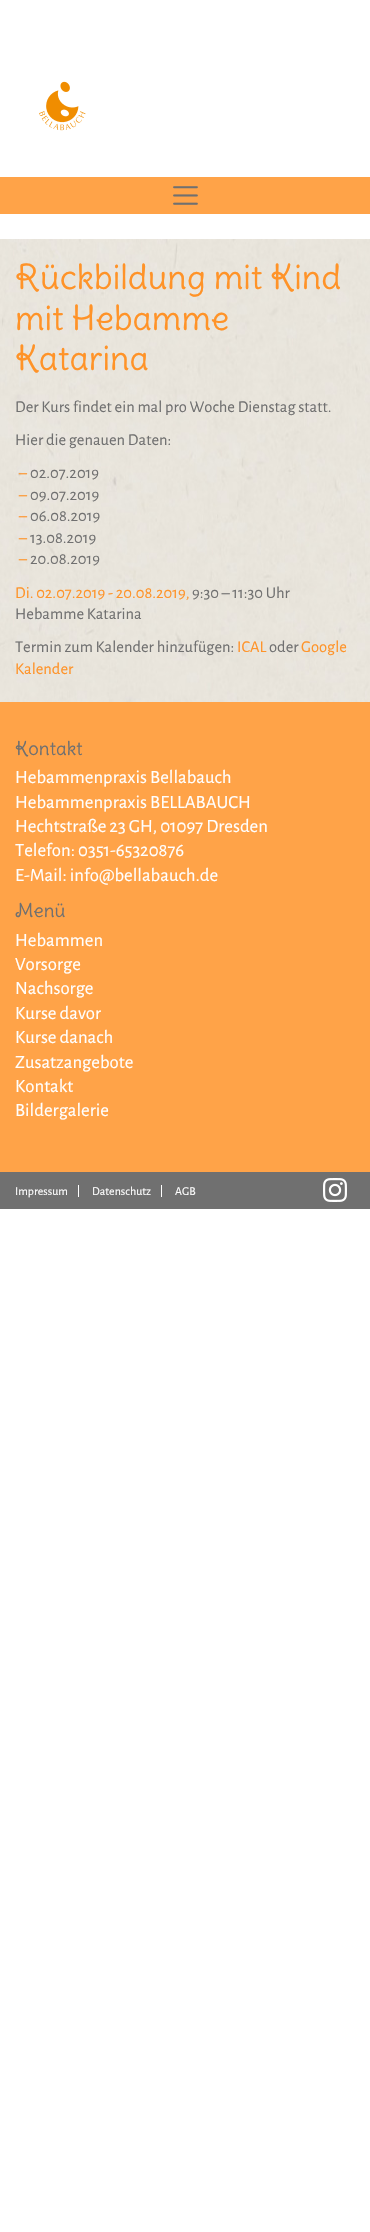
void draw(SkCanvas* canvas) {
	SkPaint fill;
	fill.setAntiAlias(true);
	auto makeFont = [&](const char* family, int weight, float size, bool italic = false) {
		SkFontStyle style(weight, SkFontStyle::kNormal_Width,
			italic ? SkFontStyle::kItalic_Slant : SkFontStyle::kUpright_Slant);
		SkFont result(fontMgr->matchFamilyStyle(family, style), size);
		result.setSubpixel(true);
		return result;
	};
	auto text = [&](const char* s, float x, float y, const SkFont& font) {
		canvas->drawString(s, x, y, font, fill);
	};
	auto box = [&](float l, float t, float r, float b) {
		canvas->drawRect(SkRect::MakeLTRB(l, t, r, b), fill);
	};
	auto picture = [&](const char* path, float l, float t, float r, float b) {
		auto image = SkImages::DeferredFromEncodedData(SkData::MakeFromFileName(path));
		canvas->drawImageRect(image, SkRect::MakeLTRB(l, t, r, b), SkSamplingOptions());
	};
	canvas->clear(0xFFFFFFFF);
	picture("image0.png", 39, 81, 86, 131);
	fill.setColor(0xFFFFA348);
	box(0, 177, 370, 214);
	picture("image1.png", 173, 186, 198, 205);
	picture("image2.png", 0, 239, 370, 702);
	box(0, 702, 370, 1172);
	fill.setColor(0xFF707070);
	box(0, 1172, 370, 1209);
	fill.setColor(0xFFFFFFFF);
	box(78, 1185, 79, 1197);
	box(161, 1185, 162, 1197);
	picture("image3.png", 323, 1178, 347, 1202);
	auto font1 = makeFont("Delius Swash Caps", 400, 33.75f);
	fill.setColor(0xFFFF9328);
	text("Rückbildung mit Kind", 15, 289, font1);
	text("mit Hebamme", 15, 330, font1);
	text("Katarina", 15, 370, font1);
	auto font2 = makeFont("Alegreya Sans", 400, 16.5f);
	fill.setColor(0xFF707070);
	text("Der Kurs findet ein mal pro Woche Dienstag statt.", 15, 412, font2);
	text("Hier die genauen Daten:", 15, 445, font2);
	fill.setColor(0xFFFF9328);
	text("–", 19, 478, font2);
	fill.setColor(0xFF707070);
	text("02.07.2019", 30, 478, font2);
	fill.setColor(0xFFFF9328);
	text("–", 19, 500, font2);
	fill.setColor(0xFF707070);
	text("09.07.2019", 30, 500, font2);
	fill.setColor(0xFFFF9328);
	text("–", 19, 521, font2);
	fill.setColor(0xFF707070);
	text("06.08.2019", 30, 521, font2);
	fill.setColor(0xFFFF9328);
	text("–", 19, 543, font2);
	fill.setColor(0xFF707070);
	text("13.08.2019", 30, 543, font2);
	fill.setColor(0xFFFF9328);
	text("–", 19, 564, font2);
	fill.setColor(0xFF707070);
	text("20.08.2019", 30, 564, font2);
	fill.setColor(0xFFFF9328);
	text("Di. 02.07.2019 - 20.08.2019,", 15, 598, font2);
	fill.setColor(0xFF707070);
	text("9:30 – 11:30 Uhr", 192, 598, font2);
	text("Hebamme Katarina", 15, 619, font2);
	text("Termin zum Kalender hinzufügen:", 15, 652, font2);
	fill.setColor(0xFFFF9328);
	text("ICAL", 237, 652, font2);
	fill.setColor(0xFF707070);
	text("oder", 269, 652, font2);
	fill.setColor(0xFFFF9328);
	text("Google", 301, 652, font2);
	text("Kalender", 15, 674, font2);
	auto font3 = makeFont("Delius Swash Caps", 400, 18.75f);
	fill.setColor(0xFF707070);
	text("Kontakt", 15, 755, font3);
	auto font4 = makeFont("Alegreya Sans", 400, 18.75f);
	fill.setColor(0xFFFFFFFF);
	text("Hebammenpraxis Bellabauch", 15, 783, font4);
	text("Hebammenpraxis BELLABAUCH", 15, 808, font4);
	text("Hechtstraße 23 GH, 01097 Dresden", 15, 832, font4);
	text("Telefon: 0351-65320876", 15, 856, font4);
	text("E-Mail: info@bellabauch.de", 15, 881, font4);
	fill.setColor(0xFF707070);
	text("Menü", 15, 917, font3);
	fill.setColor(0xFFFFFFFF);
	text("Hebammen", 15, 946, font4);
	text("Vorsorge", 15, 970, font4);
	text("Nachsorge", 15, 994, font4);
	text("Kurse davor", 15, 1019, font4);
	text("Kurse danach", 15, 1043, font4);
	text("Zusatzangebote", 15, 1068, font4);
	text("Kontakt", 15, 1092, font4);
	text("Bildergalerie", 15, 1116, font4);
	auto font5 = makeFont("Alegreya Sans", 400, 12);
	text("Impressum", 15, 1195, font5);
	text("Datenschutz", 92, 1195, font5);
	text("AGB", 175, 1195, font5);
}
